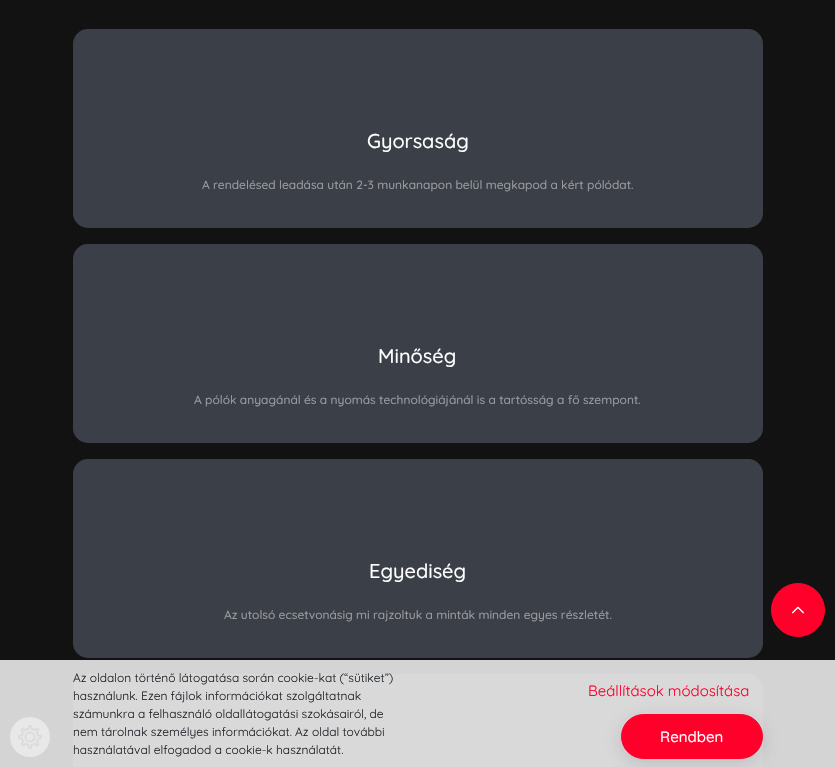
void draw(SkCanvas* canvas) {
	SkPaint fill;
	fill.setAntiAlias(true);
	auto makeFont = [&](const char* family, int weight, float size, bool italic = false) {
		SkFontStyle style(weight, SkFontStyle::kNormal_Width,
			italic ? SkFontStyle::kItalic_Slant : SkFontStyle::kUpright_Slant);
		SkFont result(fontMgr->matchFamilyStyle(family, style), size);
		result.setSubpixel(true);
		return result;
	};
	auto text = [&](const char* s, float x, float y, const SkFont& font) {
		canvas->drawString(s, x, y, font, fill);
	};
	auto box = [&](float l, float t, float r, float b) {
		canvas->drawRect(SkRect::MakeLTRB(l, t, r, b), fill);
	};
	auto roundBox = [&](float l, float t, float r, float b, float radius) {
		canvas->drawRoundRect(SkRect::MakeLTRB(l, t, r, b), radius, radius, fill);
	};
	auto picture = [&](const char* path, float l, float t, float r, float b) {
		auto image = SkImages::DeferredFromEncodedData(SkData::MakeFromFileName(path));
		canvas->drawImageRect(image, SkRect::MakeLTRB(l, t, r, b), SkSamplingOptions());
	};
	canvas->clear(0xFF121212);
	fill.setColor(0xFFD4D4D4);
	box(0, 660, 835, 767);
	fill.setColor(0xFF3B4048);
	roundBox(73, 29, 763, 228, 15);
	roundBox(73, 244, 763, 443, 15);
	roundBox(73, 459, 763, 658, 15);
	fill.setColor(0xFFD9D9DA);
	roundBox(73, 674, 763, 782, 15);
	fill.setColor(0xFFFF002B);
	canvas->drawCircle(798, 610, 26.5f, fill);
	fill.setStyle(SkPaint::kStroke_Style);
	fill.setStrokeWidth(1);
	canvas->drawCircle(798, 610, 26.5f, fill);
	picture("image0.png", 792, 606, 804, 614);
	fill.setStyle(SkPaint::kFill_Style);
	fill.setColor(0xFFE8E8E8);
	canvas->drawCircle(30, 737, 20, fill);
	picture("image1.png", 18, 725, 42, 749);
	fill.setColor(0x2620202C);
	fill.setMaskFilter(SkMaskFilter::MakeBlur(kNormal_SkBlurStyle, 10));
	canvas->drawRoundRect(SkRect::MakeLTRB(621, 719, 763, 764), 22.5f, 22.5f, fill);
	fill.setMaskFilter(nullptr);
	fill.setColor(0xFFFF002B);
	canvas->drawRoundRect(SkRect::MakeLTRB(621.5f, 714.5f, 762.5f, 758.5f), 22, 22, fill);
	fill.setStyle(SkPaint::kStroke_Style);
	canvas->drawRoundRect(SkRect::MakeLTRB(621.5f, 714.5f, 762.5f, 758.5f), 22, 22, fill);
	auto font1 = makeFont("Quicksand", 500, 20);
	fill.setStyle(SkPaint::kFill_Style);
	fill.setColor(0xFFFFFFFF);
	text("Gyorsaság", 367, 148, font1);
	auto font2 = makeFont("Quicksand", 500, 12);
	fill.setColor(0xFF9C9B9F);
	text("A rendelésed leadása után 2-3 munkanapon belül megkapod a kért pólódat.", 202, 189, font2);
	fill.setColor(0xFFFFFFFF);
	text("Minőség", 378, 363, font1);
	fill.setColor(0xFF9C9B9F);
	text("A pólók anyagánál és a nyomás technológiájánál is a tartósság a fő szempont.", 194, 404, font2);
	fill.setColor(0xFFFFFFFF);
	text("Egyediség", 369, 578, font1);
	fill.setColor(0xFF9C9B9F);
	text("Az utolsó ecsetvonásig mi rajzoltuk a minták minden egyes részletét.", 224, 619, font2);
	auto font3 = makeFont("Quicksand", 400, 12);
	fill.setColor(0xFF212529);
	text("Az oldalon történő látogatása során cookie-kat (“sütiket”)", 73, 682, font3);
	text("használunk. Ezen fájlok információkat szolgáltatnak", 73, 700, font3);
	text("számunkra a felhasználó oldallátogatási szokásairól, de", 73, 718, font3);
	text("nem tárolnak személyes információkat. Az oldal további", 73, 736, font3);
	text("használatával elfogadod a cookie-k használatát.", 73, 754, font3);
	auto font4 = makeFont("Quicksand", 400, 15);
	fill.setColor(0xFFFF002B);
	text("Beállítások módosítása", 588, 696, font4);
	auto font5 = makeFont("Quicksand", 500, 15);
	fill.setColor(0xFFFFFFFF);
	text("Rendben", 660, 742, font5);
}
